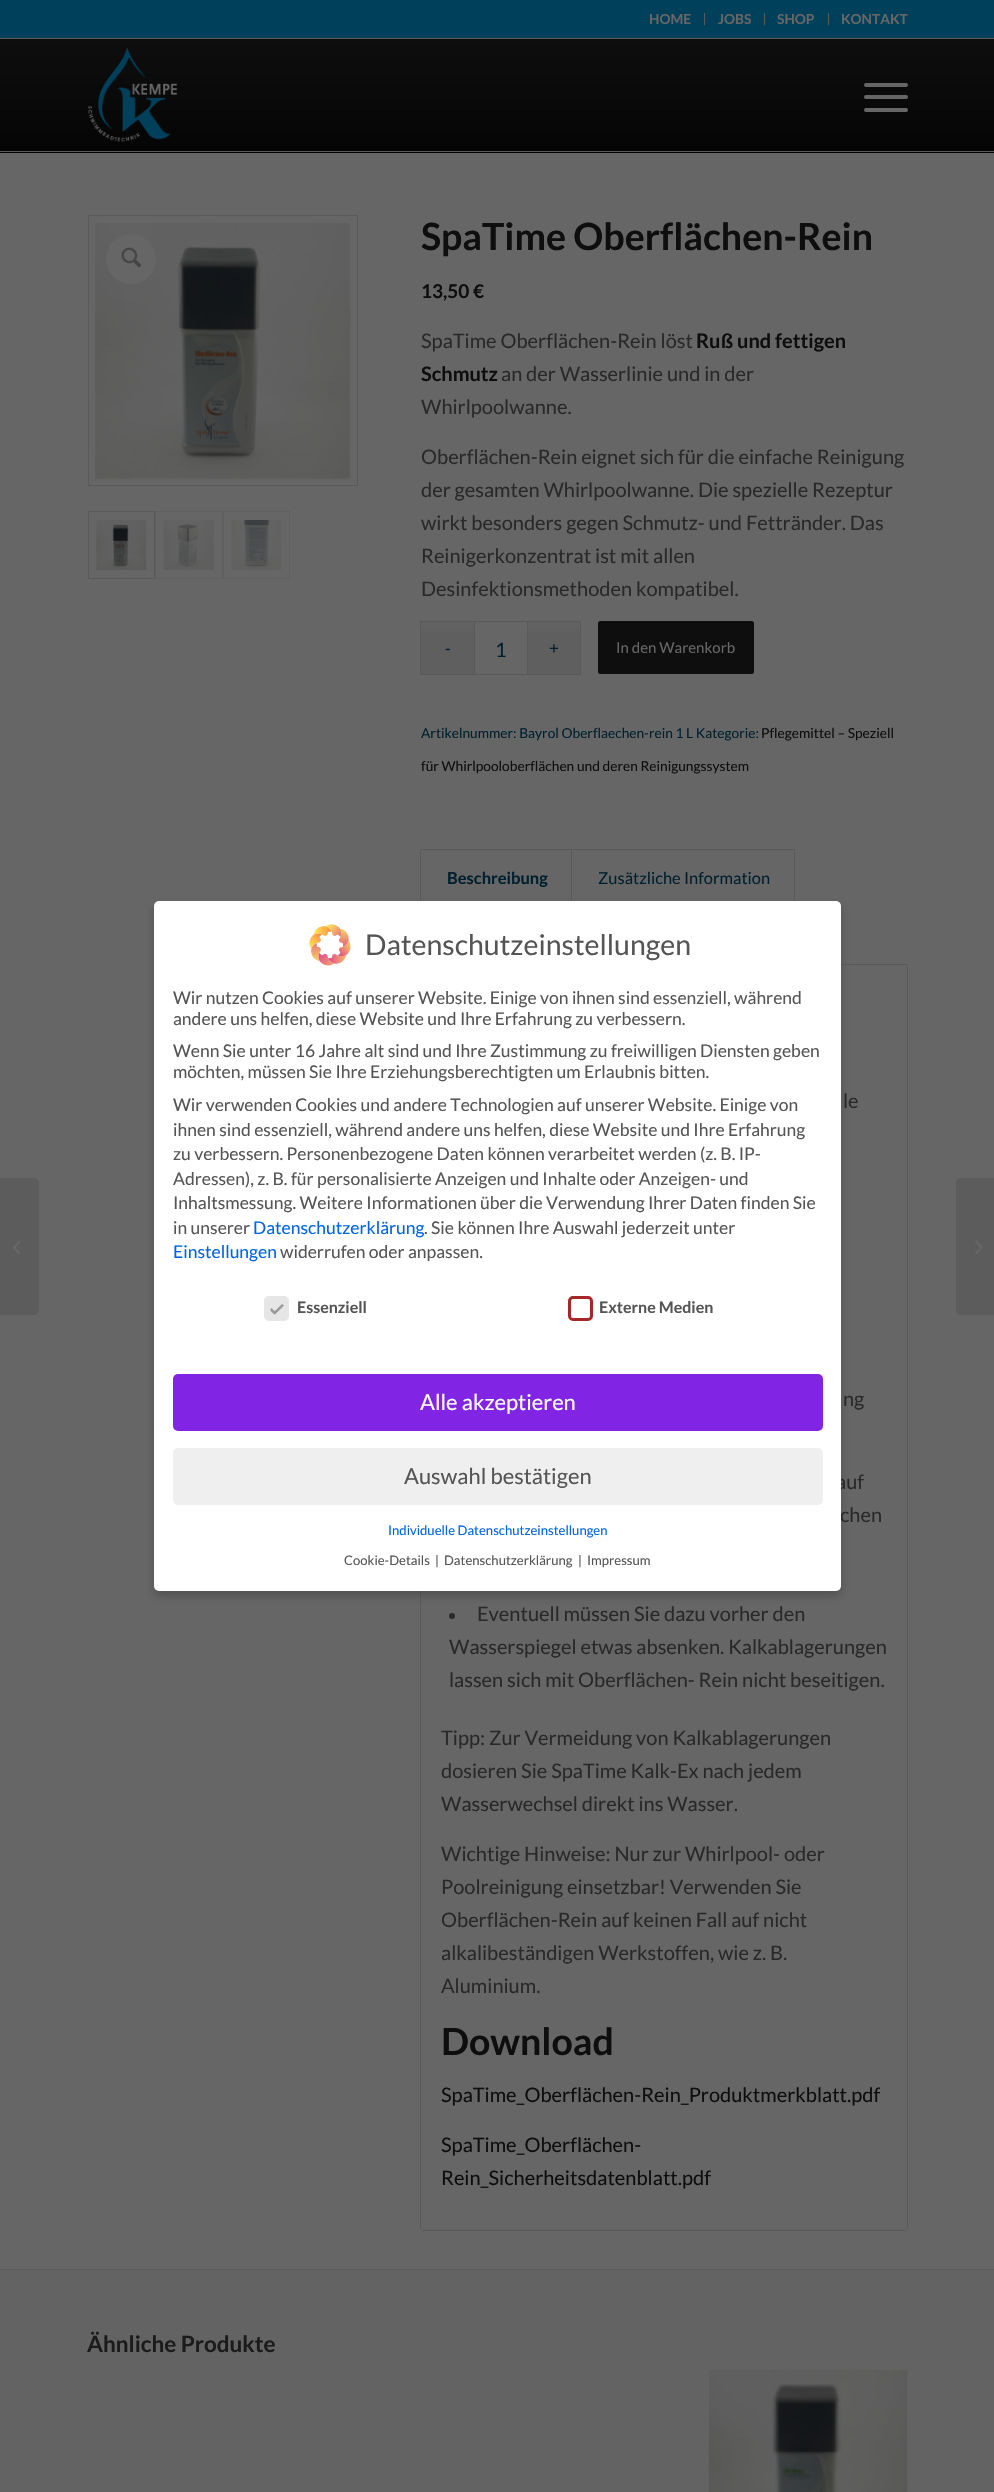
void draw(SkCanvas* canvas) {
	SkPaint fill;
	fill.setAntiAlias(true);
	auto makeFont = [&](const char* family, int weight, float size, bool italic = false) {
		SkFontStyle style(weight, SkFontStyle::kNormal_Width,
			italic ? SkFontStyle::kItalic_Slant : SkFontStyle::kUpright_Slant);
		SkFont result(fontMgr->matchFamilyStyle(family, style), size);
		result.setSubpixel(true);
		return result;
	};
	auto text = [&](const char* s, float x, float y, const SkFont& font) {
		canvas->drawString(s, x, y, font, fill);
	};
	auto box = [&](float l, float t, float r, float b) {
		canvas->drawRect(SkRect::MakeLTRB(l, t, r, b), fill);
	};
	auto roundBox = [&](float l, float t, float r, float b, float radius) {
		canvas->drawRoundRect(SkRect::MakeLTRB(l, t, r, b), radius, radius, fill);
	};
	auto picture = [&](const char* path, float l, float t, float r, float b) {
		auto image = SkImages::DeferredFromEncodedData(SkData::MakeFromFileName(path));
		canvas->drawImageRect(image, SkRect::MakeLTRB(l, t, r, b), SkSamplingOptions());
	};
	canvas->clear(0xFF636363);
	fill.setColor(0xFF00405B);
	box(0, 0, 994, 38);
	fill.setColor(0xFF5A5A5A);
	box(0, 38, 994, 39);
	box(704, 13, 705, 25);
	box(764, 13, 765, 25);
	box(828, 13, 829, 25);
	fill.setColor(0xFF000000);
	box(0, 39, 994, 153);
	picture("image0.png", 0, 39, 994, 153);
	fill.setColor(0xFF5A5A5A);
	box(0, 151, 994, 152);
	picture("image1.png", 87, 47, 178, 142);
	fill.setColor(0xFF666666);
	roundBox(864, 95, 908, 99, 2);
	roundBox(864, 83, 908, 87, 2);
	roundBox(864, 108, 908, 112, 2);
	box(0, 153, 994, 2269);
	fill.setStyle(SkPaint::kStroke_Style);
	fill.setStrokeWidth(1);
	fill.setColor(0xFF5A5A5A);
	canvas->drawRect(SkRect::MakeLTRB(88.5f, 215.5f, 357.5f, 485.5f), fill);
	picture("image2.png", 94, 223, 351, 480);
	canvas->drawRect(SkRect::MakeLTRB(88.5f, 511.5f, 154.5f, 578.5f), fill);
	picture("image3.png", 96, 520, 147, 570);
	fill.setColor(0xFF606060);
	canvas->drawRect(SkRect::MakeLTRB(155.5f, 511.5f, 222.5f, 578.5f), fill);
	picture("image4.png", 163, 520, 214, 570);
	canvas->drawRect(SkRect::MakeLTRB(223.5f, 511.5f, 289.5f, 578.5f), fill);
	picture("image5.png", 231, 520, 282, 570);
	fill.setStyle(SkPaint::kFill_Style);
	fill.setColor(0xFF666666);
	canvas->drawCircle(131, 259, 25, fill);
	picture("image6.png", 121, 247, 142, 268);
	fill.setColor(0xFF5F5F5F);
	box(421, 622, 474, 674);
	picture("image7.png", 421, 623, 474, 631);
	fill.setStyle(SkPaint::kStroke_Style);
	fill.setColor(0xFF5A5A5A);
	canvas->drawRect(SkRect::MakeLTRB(474.5f, 621.5f, 527.5f, 674.5f), fill);
	fill.setStyle(SkPaint::kFill_Style);
	fill.setColor(0xFF5F5F5F);
	box(528, 622, 580, 674);
	picture("image8.png", 527, 623, 580, 631);
	fill.setColor(0xFF5A5A5A);
	box(420, 621, 474, 622);
	box(420, 674, 474, 675);
	box(420, 621, 421, 675);
	box(528, 621, 581, 622);
	box(580, 621, 581, 675);
	box(528, 674, 581, 675);
	fill.setColor(0xFF0E0E0E);
	roundBox(598, 621, 754, 674, 2.5f);
	fill.setColor(0xFF5A5A5A);
	box(571, 849, 795, 850);
	fill.setColor(0xFF666666);
	box(571, 849, 573, 850);
	fill.setColor(0xFF5A5A5A);
	box(421, 849, 573, 850);
	box(571, 849, 572, 908);
	box(420, 850, 421, 908);
	box(794, 849, 795, 908);
	fill.setStyle(SkPaint::kStroke_Style);
	canvas->drawPath(SkPathBuilder().moveTo(420.5f, 964.5f).lineTo(907.5f, 964.5f).lineTo(907.5f, 2227).cubicTo(907.5f, 2229, 906, 2230.5f, 904, 2230.5f).lineTo(424, 2230.5f).cubicTo(422, 2230.5f, 420.5f, 2229, 420.5f, 2227).close().detach(), fill);
	fill.setStyle(SkPaint::kFill_Style);
	fill.setColor(0xFF292929);
	canvas->drawCircle(452, 1616, 3, fill);
	fill.setColor(0xFF5A5A5A);
	box(0, 2269, 994, 2270);
	picture("image9.png", 709, 2370, 908, 2492);
	fill.setColor(0xFF5C5C5C);
	canvas->drawPath(SkPathBuilder().moveTo(0, 1178).lineTo(34, 1178).cubicTo(37, 1178, 39, 1180, 39, 1183).lineTo(39, 1310).cubicTo(39, 1313, 37, 1315, 34, 1315).lineTo(0, 1315).close().detach(), fill);
	picture("image10.png", 13, 1240, 20, 1255);
	fill.setColor(0x33000000);
	fill.setMaskFilter(SkMaskFilter::MakeBlur(kNormal_SkBlurStyle, 5));
	canvas->drawRoundRect(SkRect::MakeLTRB(154, 906, 841, 1596), 5, 5, fill);
	fill.setMaskFilter(nullptr);
	fill.setColor(0xFF5C5C5C);
	canvas->drawPath(SkPathBuilder().moveTo(961, 1178).lineTo(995, 1178).lineTo(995, 1315).lineTo(961, 1315).cubicTo(958, 1315, 956, 1313, 956, 1310).lineTo(956, 1183).cubicTo(956, 1180, 958, 1178, 961, 1178).close().detach(), fill);
	picture("image12.png", 975, 1240, 983, 1255);
	auto font1 = makeFont("Lato", 700, 13.75f);
	fill.setColor(0xFF666666);
	text("HOME", 649, 24, font1);
	text("JOBS", 718, 24, font1);
	text("SHOP", 777, 24, font1);
	text("KONTAKT", 841, 24, font1);
	auto font2 = makeFont("Lato", 700, 37.5f);
	fill.setColor(0xFF0E0E0E);
	text("SpaTime Oberflächen-Rein", 421, 250, font2);
	auto font3 = makeFont("Lato", 700, 19);
	text("13,50 €", 421, 298, font3);
	auto font4 = makeFont("Lato", 400, 20);
	fill.setColor(0xFF292929);
	text("SpaTime Oberflächen-Rein löst", 421, 348, font4);
	auto font5 = makeFont("Lato", 700, 20);
	fill.setColor(0xFF0E0E0E);
	text("Ruß und fettigen", 696, 348, font5);
	text("Schmutz", 421, 381, font5);
	fill.setColor(0xFF292929);
	text("an der Wasserlinie und in der", 501, 381, font4);
	text("Whirlpoolwanne.", 421, 414, font4);
	text("Oberflächen-Rein eignet sich für die einfache Reinigung", 421, 464, font4);
	text("der gesamten Whirlpoolwanne. Die spezielle Rezeptur", 421, 497, font4);
	text("wirkt besonders gegen Schmutz- und Fettränder. Das", 421, 530, font4);
	text("Reinigerkonzentrat ist mit allen", 421, 563, font4);
	text("Desinfektionsmethoden kompatibel.", 421, 596, font4);
	auto font6 = makeFont("Liberation Sans", 400, 17);
	fill.setColor(0xFF01202E);
	text("-", 445, 654, font6);
	text("1", 495, 657, font4);
	text("+", 549, 654, font6);
	auto font7 = makeFont("Lato", 400, 15);
	fill.setColor(0xFF666666);
	text("In den Warenkorb", 616, 653, font7);
	auto font8 = makeFont("Lato", 400, 13.75f);
	fill.setColor(0xFF01202E);
	text("Artikelnummer: Bayrol Oberflaechen-rein 1 L Kategorie:", 421, 738, font8);
	fill.setColor(0xFF0E0E0E);
	text("Pflegemittel – Speziell", 761, 738, font8);
	text("für Whirlpooloberflächen und deren Reinigungssystem", 421, 771, font8);
	auto font9 = makeFont("Lato", 700, 16.5f);
	fill.setColor(0xFF01202E);
	text("Beschreibung", 447, 884, font9);
	auto font10 = makeFont("Lato", 400, 16.5f);
	text("Zusätzliche Information", 598, 884, font10);
	fill.setColor(0xFF292929);
	text("le", 843, 1108, font4);
	text("ng", 843, 1406, font4);
	text("auf", 836, 1489, font4);
	text("chen", 840, 1522, font4);
	text("Eventuell müssen Sie dazu vorher den", 477, 1621, font4);
	text("Wasserspiegel etwas absenken. Kalkablagerungen", 449, 1654, font4);
	text("lassen sich mit Oberflächen- Rein nicht beseitigen.", 449, 1687, font4);
	text("Tipp: Zur Vermeidung von Kalkablagerungen", 441, 1745, font4);
	text("dosieren Sie SpaTime Kalk-Ex nach jedem", 441, 1778, font4);
	text("Wasserwechsel direkt ins Wasser.", 441, 1811, font4);
	text("Wichtige Hinweise: Nur zur Whirlpool- oder", 441, 1861, font4);
	text("Poolreinigung einsetzbar! Verwenden Sie", 441, 1894, font4);
	text("Oberflächen-Rein auf keinen Fall auf nicht", 441, 1927, font4);
	text("alkalibeständigen Werkstoffen, wie z. B.", 441, 1960, font4);
	text("Aluminium.", 441, 1993, font4);
	fill.setColor(0xFF0E0E0E);
	text("Download", 441, 2055, font2);
	text("SpaTime_Oberflächen-Rein_Produktmerkblatt.pdf", 441, 2102, font4);
	text("SpaTime_Oberflächen-", 441, 2152, font4);
	text("Rein_Sicherheitsdatenblatt.pdf", 441, 2185, font4);
	auto font11 = makeFont("Lato", 700, 22.5f);
	fill.setColor(0xFF1B1B1B);
	text("Ähnliche Produkte", 87, 2352, font11);
	fill.setColor(0xFFFFFFFF);
	roundBox(154, 901, 841, 1591, 5);
	picture("image11.png", 309, 924, 351, 966);
	auto font12 = makeFont("Lato", 400, 28.5f);
	fill.setColor(0xFF555555);
	text("Datenschutzeinstellungen", 365, 955, font12);
	auto font13 = makeFont("Lato", 400, 17.5f);
	text("Wir nutzen Cookies auf unserer Website. Einige von ihnen sind essenziell, während", 173, 1004, font13);
	text("andere uns helfen, diese Website und Ihre Erfahrung zu verbessern.", 173, 1025, font13);
	text("Wenn Sie unter 16 Jahre alt sind und Ihre Zustimmung zu freiwilligen Diensten geben", 173, 1057, font13);
	text("möchten, müssen Sie Ihre Erziehungsberechtigten um Erlaubnis bitten.", 173, 1078, font13);
	text("Wir verwenden Cookies und andere Technologien auf unserer Website. Einige von", 173, 1111, font13);
	text("ihnen sind essenziell, während andere uns helfen, diese Website und Ihre Erfahrung", 173, 1136, font13);
	text("zu verbessern. Personenbezogene Daten können verarbeitet werden (z. B. IP-", 173, 1160, font13);
	text("Adressen), z. B. für personalisierte Anzeigen und Inhalte oder Anzeigen- und", 173, 1185, font13);
	text("Inhaltsmessung. Weitere Informationen über die Verwendung Ihrer Daten finden Sie", 173, 1209, font13);
	text("in unserer", 173, 1234, font13);
	fill.setColor(0xFF0063E3);
	text("Datenschutzerklärung", 253, 1234, font13);
	fill.setColor(0xFF555555);
	text(". Sie können Ihre Auswahl jederzeit unter", 424, 1234, font13);
	fill.setColor(0xFF0063E3);
	text("Einstellungen", 173, 1258, font13);
	fill.setColor(0xFF555555);
	text("widerrufen oder anpassen.", 280, 1258, font13);
	fill.setColor(0xFFE6E6E6);
	canvas->drawRoundRect(SkRect::MakeLTRB(265.5f, 1297.5f, 287.5f, 1319.5f), 3.5f, 3.5f, fill);
	fill.setStyle(SkPaint::kStroke_Style);
	fill.setStrokeWidth(3);
	canvas->drawRoundRect(SkRect::MakeLTRB(265.5f, 1297.5f, 287.5f, 1319.5f), 3.5f, 3.5f, fill);
	fill.setStyle(SkPaint::kFill_Style);
	fill.setColor(0xFF999999);
	canvas->drawPath(SkPathBuilder().moveTo(282, 1304).lineTo(284, 1305.5f).lineTo(275, 1314.5f).lineTo(273.5f, 1312.5f).close().detach(), fill);
	canvas->drawPath(SkPathBuilder().moveTo(271.5f, 1308).lineTo(276, 1312.5f).lineTo(274, 1314.5f).lineTo(270, 1310).close().detach(), fill);
	auto font14 = makeFont("Lato", 700, 16);
	fill.setColor(0xFF555555);
	text("Essenziell", 297, 1313, font14);
	fill.setStyle(SkPaint::kStroke_Style);
	fill.setColor(0xFFA72828);
	canvas->drawRoundRect(SkRect::MakeLTRB(569.5f, 1297.5f, 591.5f, 1319.5f), 3.5f, 3.5f, fill);
	fill.setStyle(SkPaint::kFill_Style);
	fill.setColor(0xFF555555);
	text("Externe Medien", 599, 1313, font14);
	fill.setColor(0xFF8224E3);
	roundBox(173, 1374, 823, 1431, 5);
	auto font15 = makeFont("Lato", 400, 21.9f);
	fill.setColor(0xFFFFFFFF);
	text("Alle akzeptieren", 420, 1410, font15);
	fill.setColor(0xFFEFEFEF);
	roundBox(173, 1448, 823, 1505, 5);
	fill.setColor(0xFF555555);
	text("Auswahl bestätigen", 404, 1484, font15);
	auto font16 = makeFont("Lato", 400, 13.1f);
	fill.setColor(0xFF0063E3);
	text("Individuelle Datenschutzeinstellungen", 388, 1535, font16);
	fill.setColor(0xFF555555);
	text("Cookie-Details", 344, 1565, font16);
	text("|", 435, 1565, font16);
	text("Datenschutzerklärung", 444, 1565, font16);
	text("|", 578, 1565, font16);
	text("Impressum", 587, 1565, font16);
}
